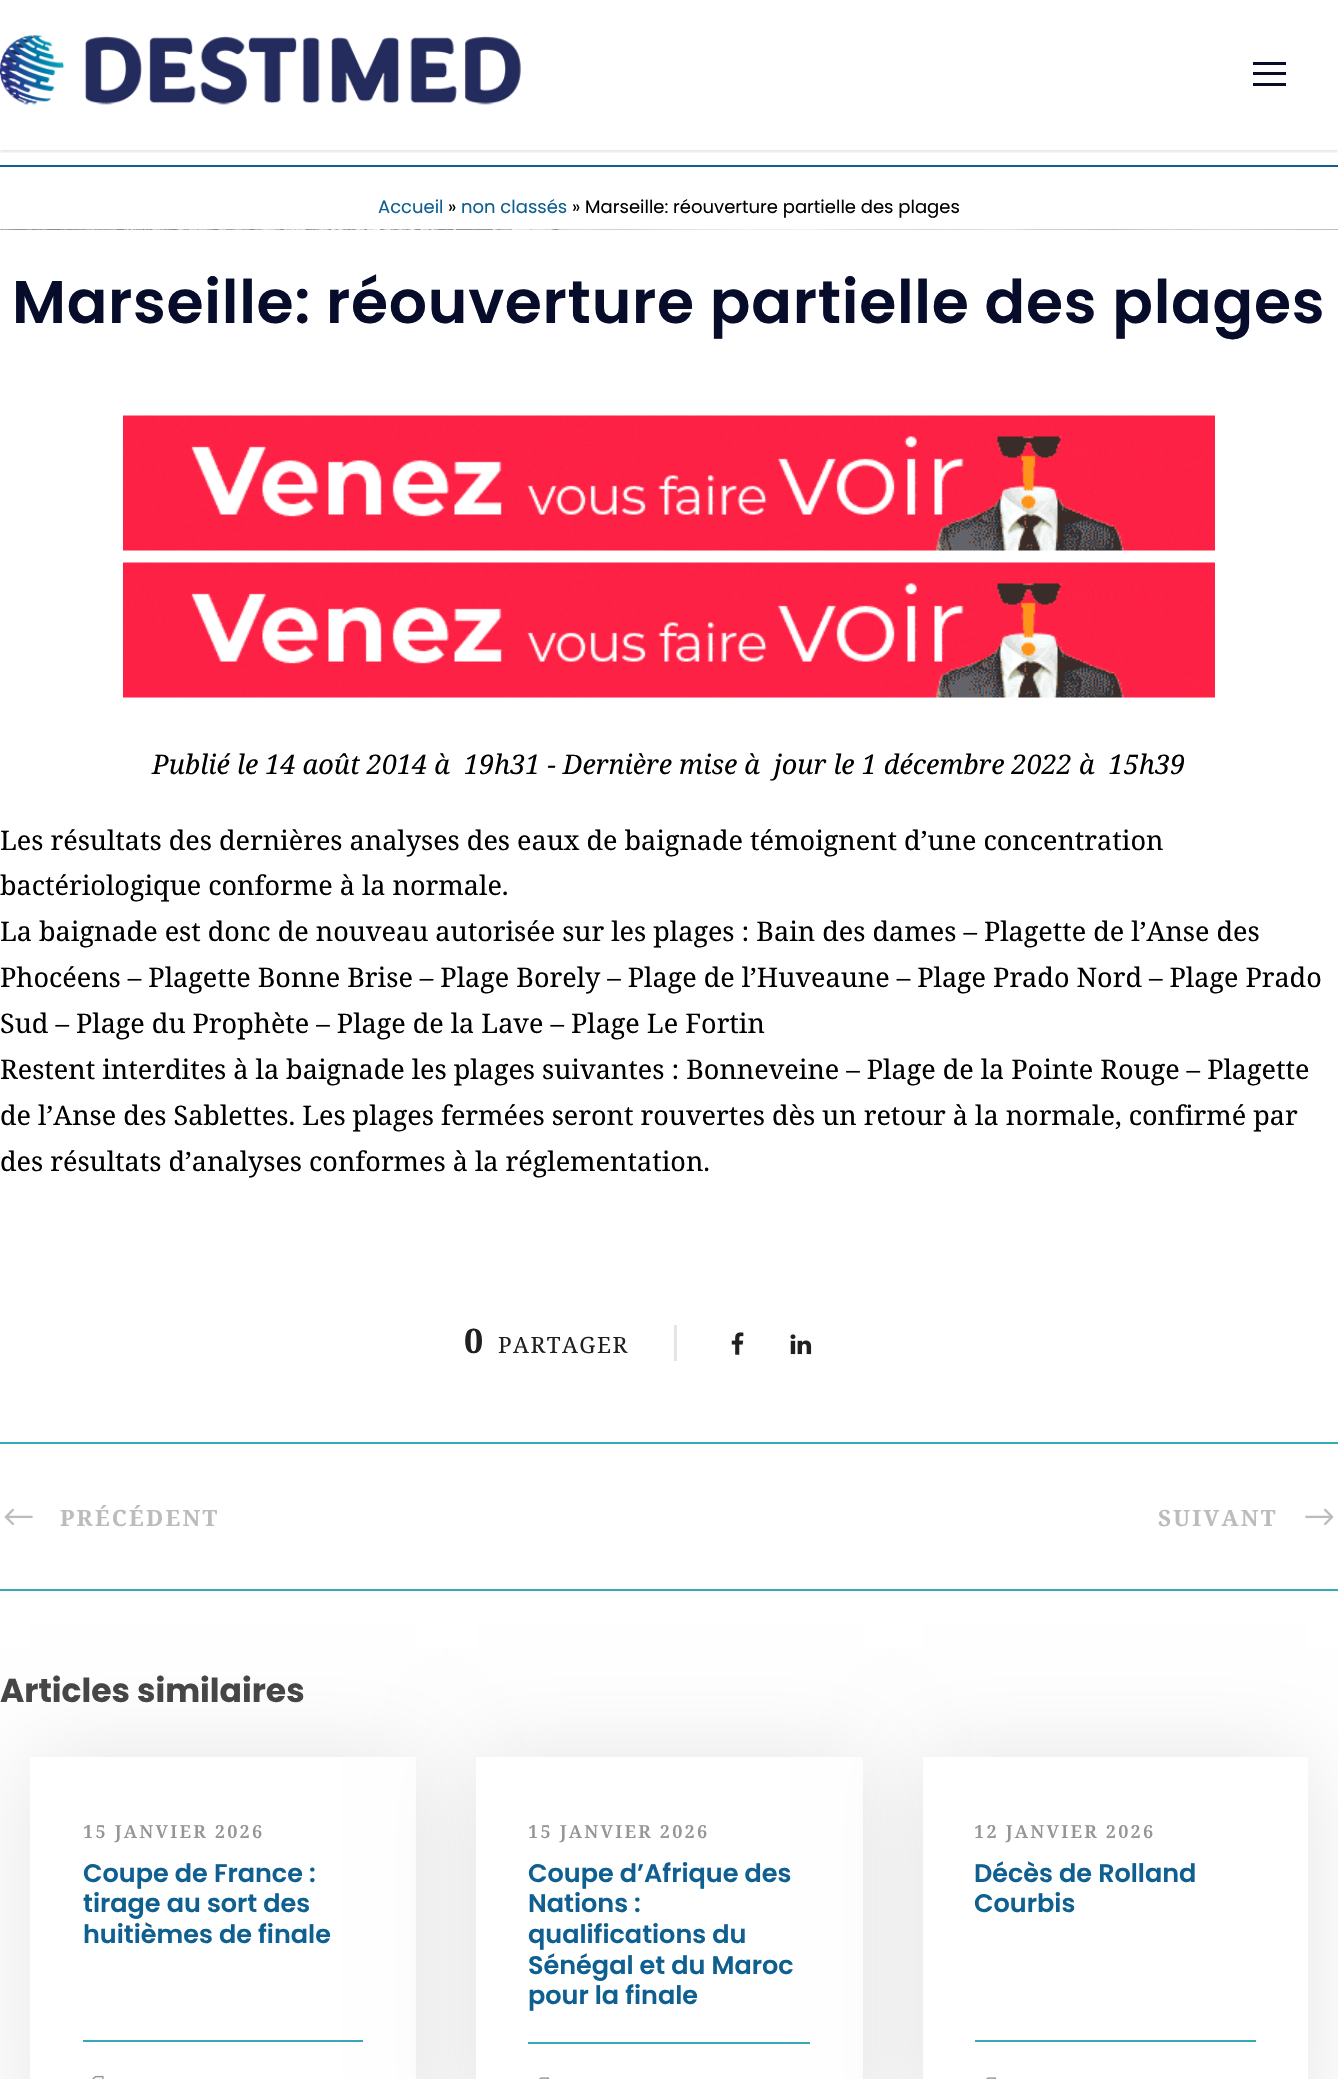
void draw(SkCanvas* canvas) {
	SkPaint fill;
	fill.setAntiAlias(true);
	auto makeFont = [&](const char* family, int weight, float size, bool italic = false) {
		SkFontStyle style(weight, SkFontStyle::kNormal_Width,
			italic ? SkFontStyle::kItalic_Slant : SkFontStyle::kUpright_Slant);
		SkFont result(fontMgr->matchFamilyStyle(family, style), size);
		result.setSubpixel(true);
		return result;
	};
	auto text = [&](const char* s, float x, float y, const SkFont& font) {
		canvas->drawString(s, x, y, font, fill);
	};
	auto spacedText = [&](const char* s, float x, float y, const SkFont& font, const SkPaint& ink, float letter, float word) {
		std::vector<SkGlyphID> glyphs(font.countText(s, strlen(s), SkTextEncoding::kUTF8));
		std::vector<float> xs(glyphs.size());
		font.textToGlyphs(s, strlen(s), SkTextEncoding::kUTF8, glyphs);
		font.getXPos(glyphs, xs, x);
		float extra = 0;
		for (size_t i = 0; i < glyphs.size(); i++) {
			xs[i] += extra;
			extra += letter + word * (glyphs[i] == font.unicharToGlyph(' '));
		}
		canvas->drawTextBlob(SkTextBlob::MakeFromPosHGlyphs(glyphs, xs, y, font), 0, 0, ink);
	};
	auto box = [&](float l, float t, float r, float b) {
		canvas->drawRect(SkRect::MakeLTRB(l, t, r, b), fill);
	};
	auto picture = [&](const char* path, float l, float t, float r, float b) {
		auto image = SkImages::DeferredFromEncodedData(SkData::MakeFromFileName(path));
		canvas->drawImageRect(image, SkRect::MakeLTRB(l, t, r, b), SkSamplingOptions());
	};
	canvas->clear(0xFFFFFFFF);
	canvas->save();
	canvas->clipRect(SkRect::MakeLTRB(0, 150, 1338, 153));
	fill.setColor(0x1A000000);
	fill.setMaskFilter(SkMaskFilter::MakeBlur(kNormal_SkBlurStyle, 1.5f));
	canvas->drawRect(SkRect::MakeLTRB(0, 2, 1338, 152), fill);
	fill.setMaskFilter(nullptr);
	canvas->restore();
	picture("image0.png", 0, 35, 521, 105);
	fill.setColor(0xFF070C2B);
	box(1253, 62, 1286, 65);
	box(1253, 72, 1286, 75);
	box(1253, 83, 1286, 86);
	fill.setColor(0xFF0F6091);
	box(0, 165, 1338, 167);
	picture("image1.png", 0, 229, 1338, 230);
	picture("image2.png", 123, 415, 1215, 551);
	picture("image2.png", 123, 562, 1215, 698);
	fill.setColor(0xFFE5E5E5);
	box(674, 1325, 677, 1361);
	picture("image3.png", 731, 1332, 744, 1355);
	picture("image4.png", 790, 1334, 812, 1355);
	fill.setColor(0xFF37A8B7);
	box(0, 1442, 1338, 1444);
	box(0, 1589, 1338, 1591);
	picture("image5.png", 4, 1508, 33, 1525);
	picture("image6.png", 1305, 1508, 1334, 1525);
	fill.setColor(0x1A000000);
	fill.setMaskFilter(SkMaskFilter::MakeBlur(kNormal_SkBlurStyle, 45));
	canvas->drawRect(SkRect::MakeLTRB(30, 1757, 416, 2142), fill);
	fill.setMaskFilter(nullptr);
	fill.setColor(0xFFFFFFFF);
	box(30, 1757, 416, 2079);
	fill.setColor(0xFF37A8B7);
	box(83, 2040, 363, 2042);
	picture("image7.png", 92, 2075, 104, 2079);
	fill.setColor(0x1A000000);
	fill.setMaskFilter(SkMaskFilter::MakeBlur(kNormal_SkBlurStyle, 45));
	canvas->drawRect(SkRect::MakeLTRB(476, 1757, 863, 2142), fill);
	fill.setMaskFilter(nullptr);
	fill.setColor(0xFFFFFFFF);
	box(476, 1757, 863, 2079);
	fill.setColor(0xFF37A8B7);
	box(528, 2042, 810, 2044);
	picture("image8.png", 539, 2077, 550, 2079);
	fill.setColor(0x1A000000);
	fill.setMaskFilter(SkMaskFilter::MakeBlur(kNormal_SkBlurStyle, 45));
	canvas->drawRect(SkRect::MakeLTRB(923, 1757, 1308, 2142), fill);
	fill.setMaskFilter(nullptr);
	fill.setColor(0xFFFFFFFF);
	box(923, 1757, 1308, 2079);
	fill.setColor(0xFF37A8B7);
	box(975, 2040, 1256, 2042);
	picture("image8.png", 986, 2077, 997, 2079);
	auto font1 = makeFont("Poppins", 400, 18);
	fill.setColor(0xFF0F6091);
	text("Accueil", 378, 213, font1);
	fill.setColor(0xFF000000);
	text("»", 448, 213, font1);
	fill.setColor(0xFF0F6091);
	text("non classés", 461, 213, font1);
	fill.setColor(0xFF000000);
	text("» Marseille: réouverture partielle des plages", 572, 213, font1);
	auto font2 = makeFont("Poppins", 600, 60);
	fill.setColor(0xFF070C2B);
	spacedText("Marseille: réouverture partielle des plages", 12, 323, font2, fill, 0.75f, 0);
	auto font3 = makeFont("Noto Serif", 400, 27, true);
	fill.setColor(0xFF000000);
	text("Publié le 14 août 2014 à  19h31 - Dernière mise à  jour le 1 décembre 2022 à  15h39", 152, 774, font3);
	auto font4 = makeFont("Noto Serif", 400, 27);
	text("Les résultats des dernières analyses des eaux de baignade témoignent dʼune concentration", 0, 850, font4);
	text("bactériologique conforme à la normale.", 0, 895, font4);
	text("La baignade est donc de nouveau autorisée sur les plages : Bain des dames – Plagette de lʼAnse des", 0, 941, font4);
	text("Phocéens – Plagette Bonne Brise – Plage Borely – Plage de lʼHuveaune – Plage Prado Nord – Plage Prado", 0, 987, font4);
	text("Sud – Plage du Prophète – Plage de la Lave – Plage Le Fortin", 0, 1033, font4);
	text("Restent interdites à la baignade les plages suivantes : Bonneveine – Plage de la Pointe Rouge – Plagette", 0, 1079, font4);
	text("de lʼAnse des Sablettes. Les plages fermées seront rouvertes dès un retour à la normale, confirmé par", 0, 1125, font4);
	text("des résultats d’analyses conformes à la réglementation.", 0, 1171, font4);
	auto font5 = makeFont("Noto Serif", 700, 34);
	fill.setColor(0xFF202020);
	text("0", 464, 1353, font5);
	auto font6 = makeFont("Noto Serif", 400, 22.5f);
	spacedText("PARTAGER", 498, 1353, font6, fill, 1.5f, 0);
	auto font7 = makeFont("Noto Serif", 700, 22.5f);
	fill.setColor(0xFFBCBCBC);
	spacedText("PRÉCÉDENT", 60, 1526, font7, fill, 2.25f, 0);
	spacedText("SUIVANT", 1158, 1526, font7, fill, 2.25f, 0);
	auto font8 = makeFont("Poppins", 700, 33);
	fill.setColor(0xFF464646);
	text("Articles similaires", 0, 1702, font8);
	auto font9 = makeFont("Noto Serif", 600, 18);
	fill.setColor(0xFF959595);
	spacedText("15 JANVIER 2026", 83, 1838, font9, fill, 2.25f, 0);
	auto font10 = makeFont("Poppins", 600, 25.5f);
	fill.setColor(0xFF0F6091);
	text("Coupe de France :", 83, 1882, font10);
	text("tirage au sort des", 83, 1912, font10);
	text("huitièmes de finale", 83, 1943, font10);
	fill.setColor(0xFF959595);
	spacedText("15 JANVIER 2026", 528, 1838, font9, fill, 2.25f, 0);
	fill.setColor(0xFF0F6091);
	text("Coupe d’Afrique des", 528, 1882, font10);
	text("Nations :", 528, 1912, font10);
	text("qualifications du", 528, 1943, font10);
	text("Sénégal et du Maroc", 528, 1974, font10);
	text("pour la finale", 528, 2004, font10);
	fill.setColor(0xFF959595);
	spacedText("12 JANVIER 2026", 974, 1838, font9, fill, 2.25f, 0);
	fill.setColor(0xFF0F6091);
	text("Décès de Rolland", 974, 1882, font10);
	text("Courbis", 974, 1912, font10);
}
